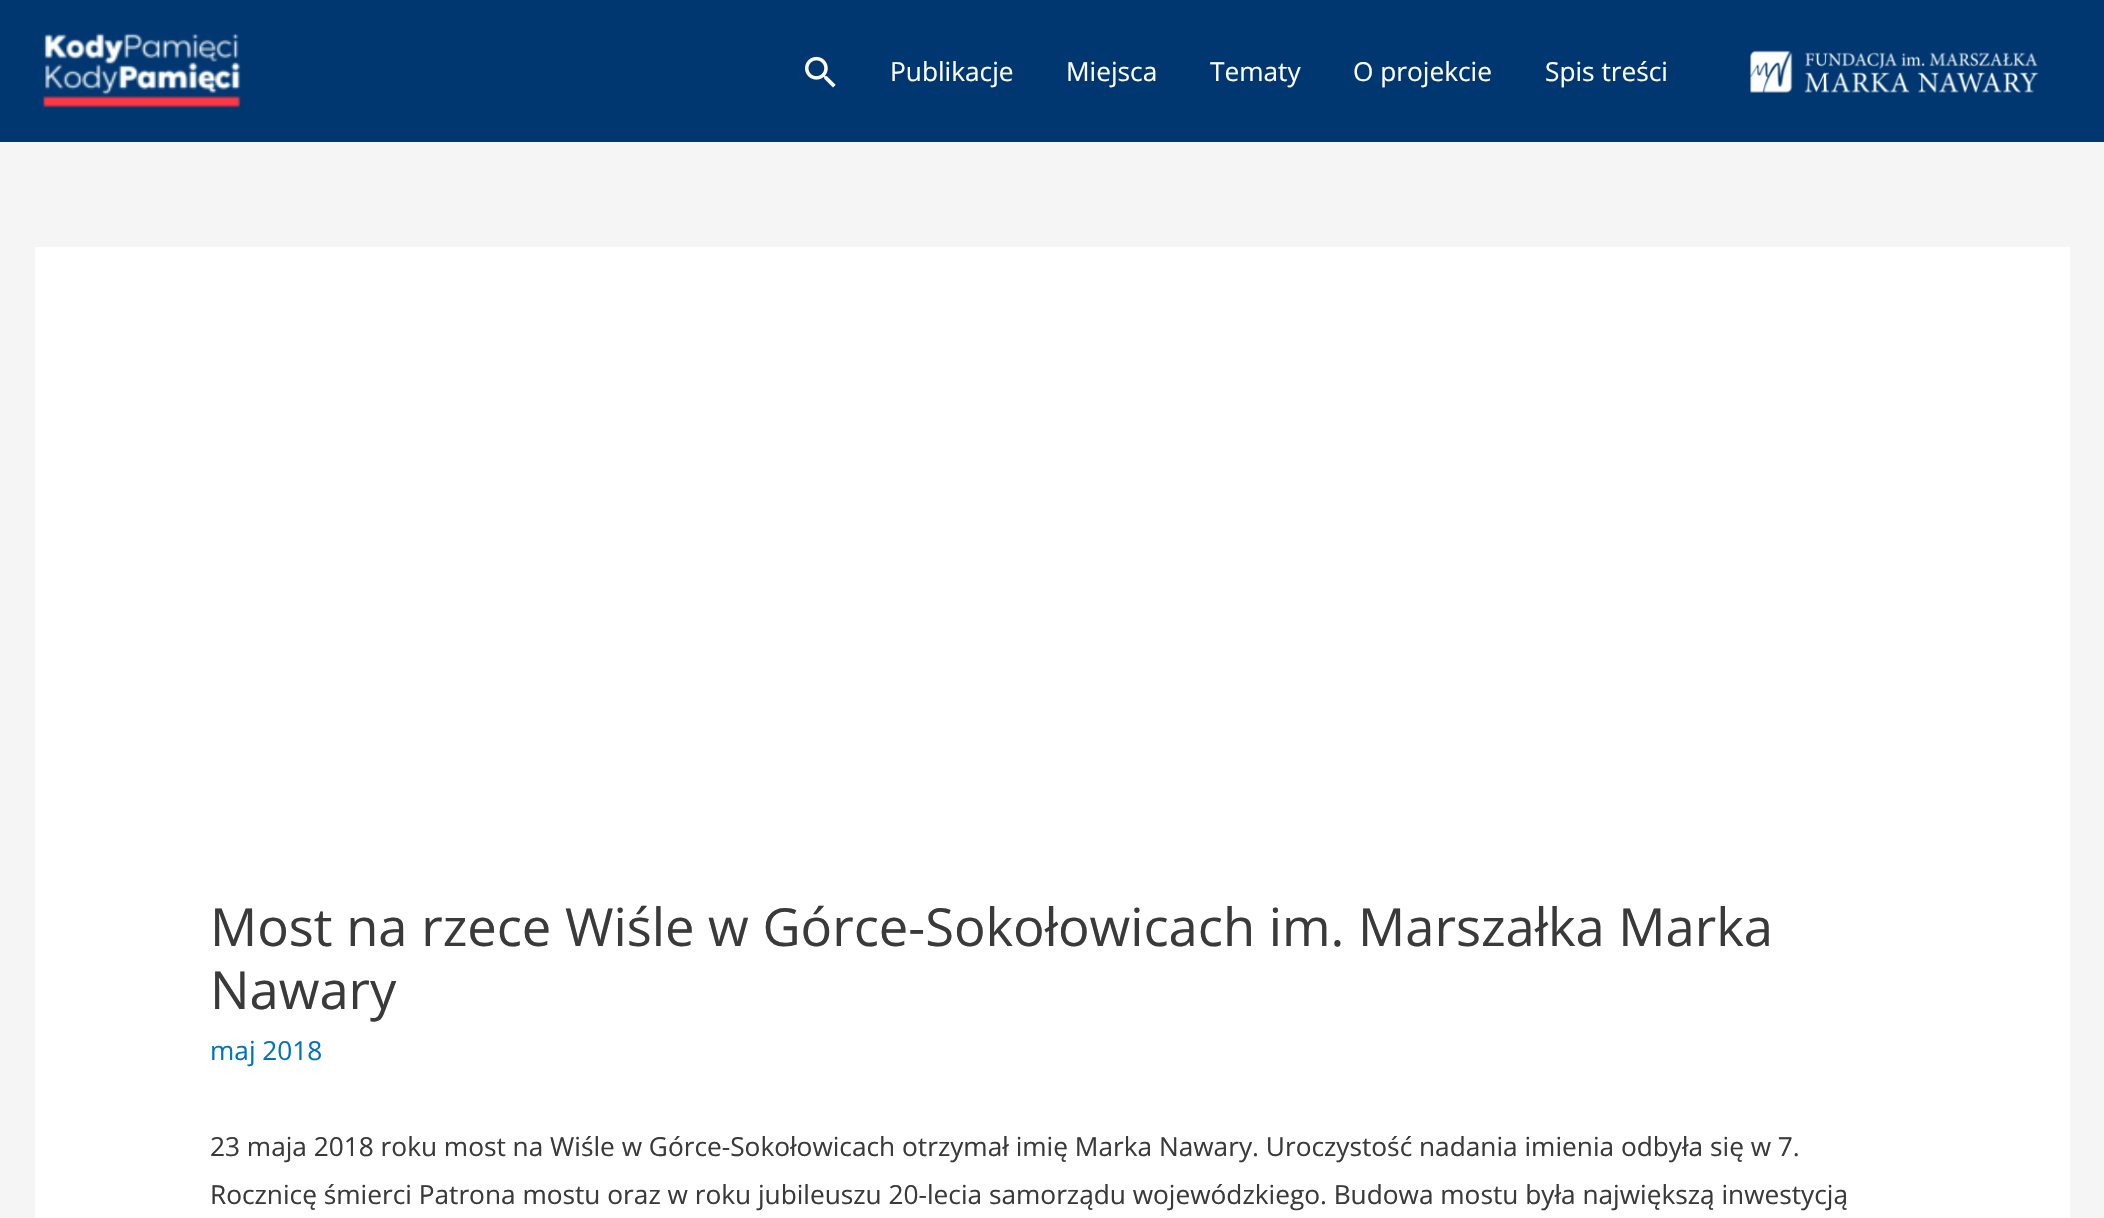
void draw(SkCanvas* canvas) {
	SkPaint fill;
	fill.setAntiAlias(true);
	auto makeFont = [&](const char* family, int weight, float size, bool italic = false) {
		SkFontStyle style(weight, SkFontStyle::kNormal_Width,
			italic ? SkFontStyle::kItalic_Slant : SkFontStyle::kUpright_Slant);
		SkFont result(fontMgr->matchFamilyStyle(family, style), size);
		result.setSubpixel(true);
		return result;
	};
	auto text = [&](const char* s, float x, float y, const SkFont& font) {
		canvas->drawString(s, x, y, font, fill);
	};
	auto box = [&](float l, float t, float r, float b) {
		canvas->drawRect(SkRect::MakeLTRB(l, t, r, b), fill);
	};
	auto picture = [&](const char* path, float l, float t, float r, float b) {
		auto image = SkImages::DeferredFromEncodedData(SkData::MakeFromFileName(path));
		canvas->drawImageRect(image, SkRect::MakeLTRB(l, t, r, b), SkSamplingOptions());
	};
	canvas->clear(0xFFF5F5F5);
	fill.setColor(0xFF003770);
	box(0, 0, 2104, 142);
	picture("image0.png", 42, 33, 241, 108);
	picture("image1.png", 805, 56, 836, 88);
	picture("image2.png", 1750, 50, 2039, 93);
	fill.setColor(0xFFFFFFFF);
	box(35, 247, 2070, 1218);
	auto font1 = makeFont("Open Sans", 400, 26.25f);
	text("Publikacje", 890, 81, font1);
	text("Miejsca", 1066, 81, font1);
	text("Tematy", 1210, 81, font1);
	text("O projekcie", 1353, 81, font1);
	text("Spis treści", 1545, 81, font1);
	auto font2 = makeFont("Open Sans", 400, 52.5f);
	fill.setColor(0xFF3A3A3A);
	text("Most na rzece Wiśle w Górce-Sokołowicach im. Marszałka Marka", 210, 946, font2);
	text("Nawary", 210, 1009, font2);
	fill.setColor(0xFF0274BE);
	text("maj 2018", 210, 1060, font1);
	fill.setColor(0xFF3A3A3A);
	text("23 maja 2018 roku most na Wiśle w Górce-Sokołowicach otrzymał imię Marka Nawary. Uroczystość nadania imienia odbyła się w 7.", 210, 1156, font1);
	text("Rocznicę śmierci Patrona mostu oraz w roku jubileuszu 20-lecia samorządu wojewódzkiego. Budowa mostu była największą inwestycją", 210, 1204, font1);
}
